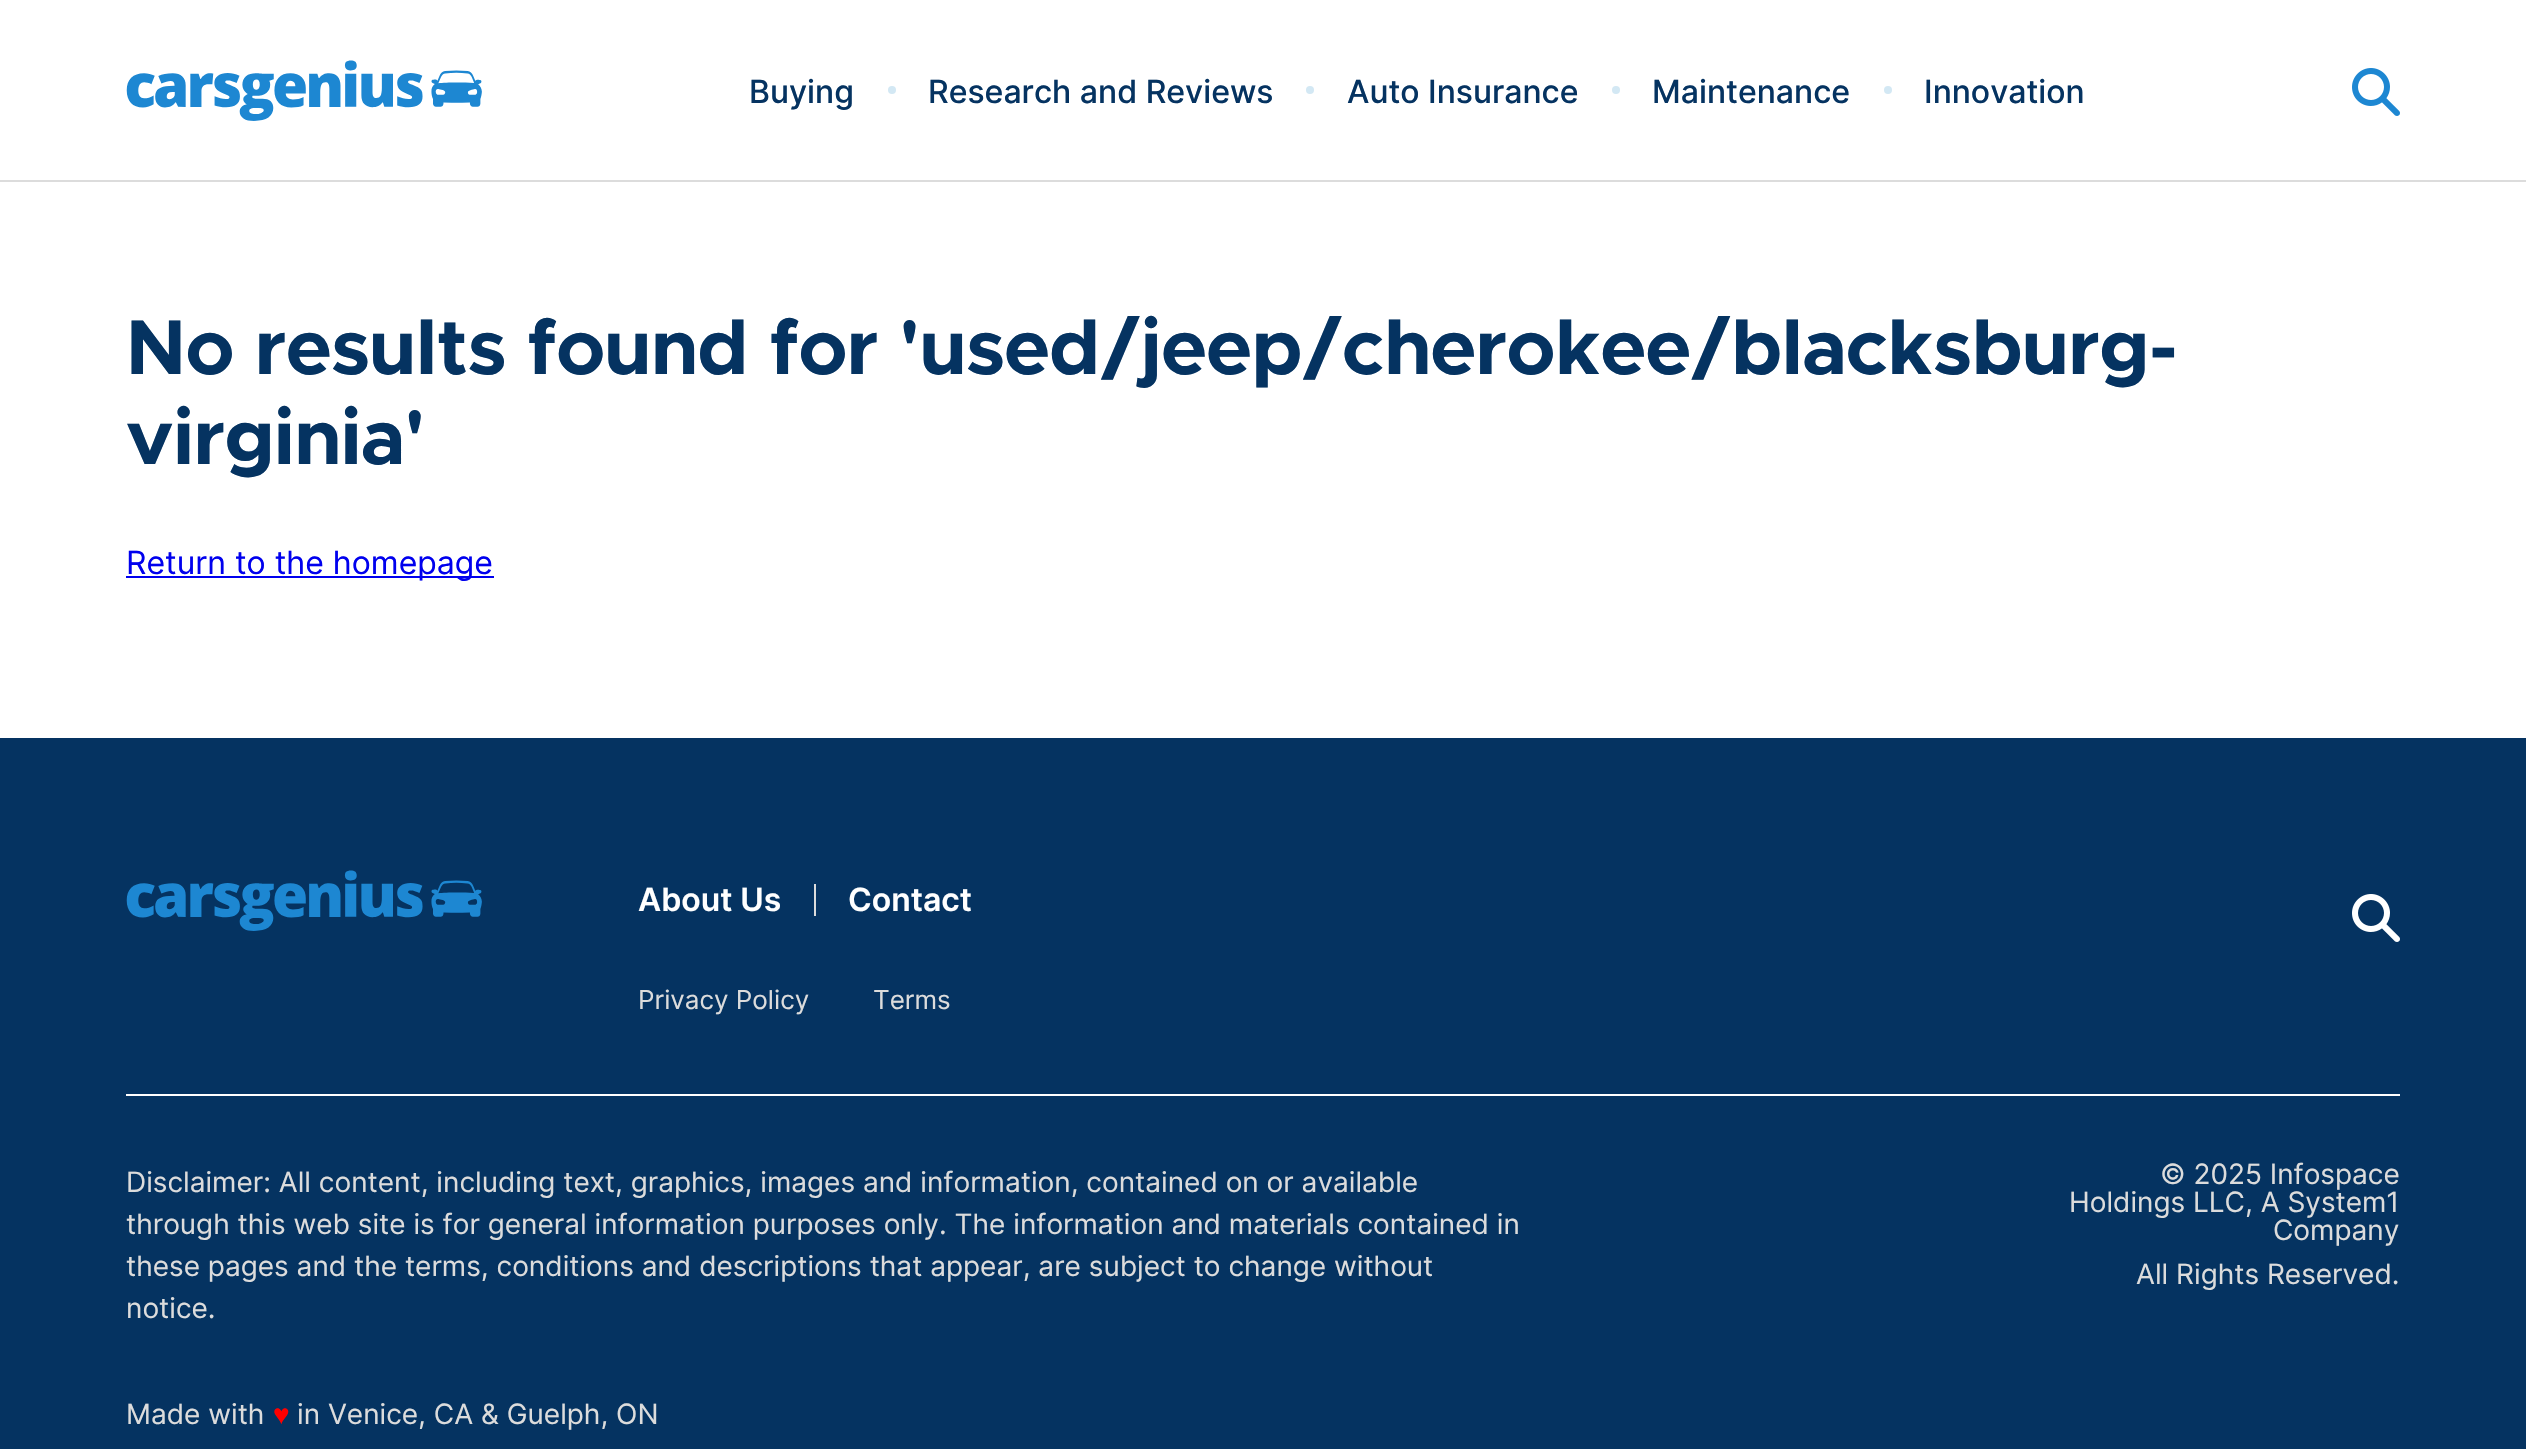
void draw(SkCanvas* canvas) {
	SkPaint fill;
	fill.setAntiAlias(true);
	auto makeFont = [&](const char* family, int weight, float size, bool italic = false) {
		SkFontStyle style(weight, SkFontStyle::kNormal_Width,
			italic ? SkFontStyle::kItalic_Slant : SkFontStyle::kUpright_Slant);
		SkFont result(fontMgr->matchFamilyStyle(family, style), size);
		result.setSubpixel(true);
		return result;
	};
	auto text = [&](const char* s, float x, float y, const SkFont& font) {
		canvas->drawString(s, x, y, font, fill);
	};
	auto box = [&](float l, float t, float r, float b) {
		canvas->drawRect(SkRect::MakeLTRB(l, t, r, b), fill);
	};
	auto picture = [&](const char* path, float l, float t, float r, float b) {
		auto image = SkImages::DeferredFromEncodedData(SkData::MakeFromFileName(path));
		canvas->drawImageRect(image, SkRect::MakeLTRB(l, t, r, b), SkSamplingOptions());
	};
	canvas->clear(0xFFFFFFFF);
	fill.setColor(0xFFDCDCDC);
	box(0, 180, 2526, 182);
	picture("image0.png", 126, 60, 482, 121);
	fill.setColor(0xFFD3E8F4);
	canvas->drawCircle(892, 90, 4, fill);
	canvas->drawCircle(1310, 90, 4, fill);
	canvas->drawCircle(1616, 90, 4, fill);
	canvas->drawCircle(1888, 90, 4, fill);
	picture("image1.png", 2352, 68, 2400, 116);
	fill.setColor(0xFF0000EE);
	box(126, 576, 494, 578);
	fill.setColor(0xFF053361);
	box(0, 738, 2526, 1449);
	picture("image2.png", 126, 870, 482, 931);
	fill.setColor(0xFFDCDCDC);
	box(814, 884, 816, 916);
	picture("image3.png", 2352, 894, 2400, 942);
	fill.setColor(0xFFFFFFFF);
	box(126, 1094, 2400, 1096);
	auto font1 = makeFont("Inter", 500, 32);
	fill.setColor(0xFF053361);
	text("Buying", 749, 103, font1);
	text("Research and Reviews", 928, 103, font1);
	text("Auto Insurance", 1347, 103, font1);
	text("Maintenance", 1652, 103, font1);
	text("Innovation", 1924, 103, font1);
	auto font2 = makeFont("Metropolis", 700, 78);
	text("No results found for 'used/jeep/cherokee/blacksburg-", 126, 374, font2);
	text("virginia'", 126, 464, font2);
	auto font3 = makeFont("Inter", 400, 32);
	fill.setColor(0xFF0000EE);
	text("Return to the homepage", 126, 574, font3);
	auto font4 = makeFont("Inter", 600, 32);
	fill.setColor(0xFFFFFFFF);
	text("About Us", 638, 911, font4);
	text("Contact", 848, 911, font4);
	auto font5 = makeFont("Inter", 400, 26);
	fill.setColor(0xFFDCDCDC);
	text("Privacy Policy", 638, 1009, font5);
	text("Terms", 873, 1009, font5);
	auto font6 = makeFont("Inter", 400, 28);
	text("Disclaimer: All content, including text, graphics, images and information, contained on or available", 126, 1192, font6);
	text("through this web site is for general information purposes only. The information and materials contained in", 126, 1234, font6);
	text("these pages and the terms, conditions and descriptions that appear, are subject to change without", 126, 1276, font6);
	text("notice.", 126, 1318, font6);
	text("Made with", 126, 1424, font6);
	auto font7 = makeFont("Liberation Sans", 400, 28);
	fill.setColor(0xFFFF0000);
	text("♥", 273, 1424, font7);
	fill.setColor(0xFFDCDCDC);
	text("in Venice, CA & Guelph, ON", 297, 1424, font6);
	text("© 2025 Infospace", 2160, 1184, font6);
	text("Holdings LLC, A System1", 2069, 1212, font6);
	text("Company", 2273, 1240, font6);
	text("All Rights Reserved.", 2136, 1284, font6);
}
